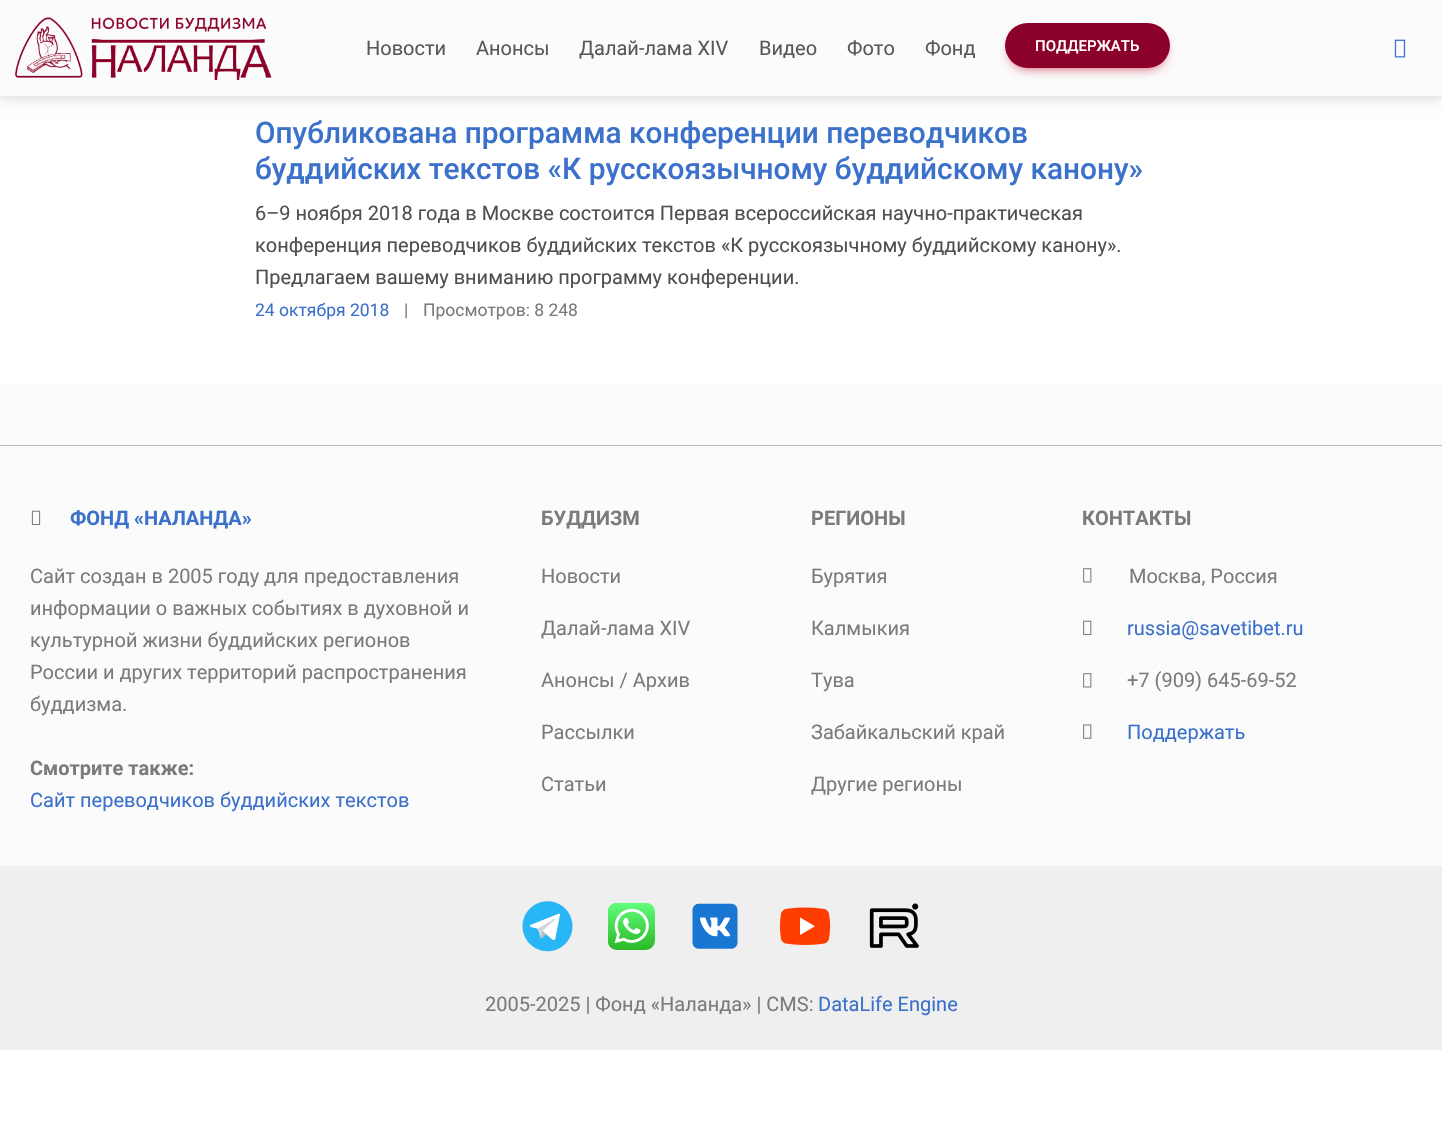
void draw(SkCanvas* canvas) {
	SkPaint fill;
	fill.setAntiAlias(true);
	auto makeFont = [&](const char* family, int weight, float size, bool italic = false) {
		SkFontStyle style(weight, SkFontStyle::kNormal_Width,
			italic ? SkFontStyle::kItalic_Slant : SkFontStyle::kUpright_Slant);
		SkFont result(fontMgr->matchFamilyStyle(family, style), size);
		result.setSubpixel(true);
		return result;
	};
	auto text = [&](const char* s, float x, float y, const SkFont& font) {
		canvas->drawString(s, x, y, font, fill);
	};
	auto box = [&](float l, float t, float r, float b) {
		canvas->drawRect(SkRect::MakeLTRB(l, t, r, b), fill);
	};
	auto roundBox = [&](float l, float t, float r, float b, float radius) {
		canvas->drawRoundRect(SkRect::MakeLTRB(l, t, r, b), radius, radius, fill);
	};
	auto picture = [&](const char* path, float l, float t, float r, float b) {
		auto image = SkImages::DeferredFromEncodedData(SkData::MakeFromFileName(path));
		canvas->drawImageRect(image, SkRect::MakeLTRB(l, t, r, b), SkSamplingOptions());
	};
	canvas->clear(0xFFFFFFFF);
	fill.setColor(0x0D000000);
	fill.setMaskFilter(SkMaskFilter::MakeBlur(kNormal_SkBlurStyle, 2.5f));
	canvas->drawRect(SkRect::MakeLTRB(0, 3, 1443, 99), fill);
	fill.setMaskFilter(nullptr);
	fill.setColor(0x12000000);
	fill.setMaskFilter(SkMaskFilter::MakeBlur(kNormal_SkBlurStyle, 7.5f));
	canvas->drawRect(SkRect::MakeLTRB(0, 5, 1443, 101), fill);
	fill.setMaskFilter(nullptr);
	fill.setColor(0xFFFBFBFB);
	box(0, 0, 1442, 96);
	picture("image0.png", 15, 17, 272, 80);
	fill.setColor(0xFFD1485F);
	fill.setMaskFilter(SkMaskFilter::MakeBlur(kNormal_SkBlurStyle, 5.5f));
	canvas->drawRoundRect(SkRect::MakeLTRB(1010, 33, 1165, 68), 17.5f, 17.5f, fill);
	fill.setMaskFilter(nullptr);
	fill.setColor(0xFF8B012A);
	roundBox(1005, 23, 1170, 68, 22.5f);
	picture("image1.png", 1394, 39, 1406, 58);
	fill.setColor(0xFFFBFBFB);
	box(0, 385, 1442, 866);
	fill.setColor(0xFFBDBDBD);
	box(0, 445, 1442, 446);
	picture("image2.png", 31, 510, 41, 525);
	picture("image3.png", 1083, 568, 1092, 583);
	picture("image4.png", 1083, 620, 1092, 635);
	picture("image3.png", 1083, 673, 1092, 688);
	picture("image5.png", 1083, 724, 1092, 739);
	fill.setColor(0xFFEFEFEF);
	box(0, 866, 1442, 1050);
	picture("image6.png", 522, 901, 573, 952);
	picture("image7.png", 608, 903, 655, 950);
	picture("image8.png", 692, 903, 738, 949);
	picture("image9.png", 780, 907, 831, 945);
	picture("image10.png", 869, 903, 919, 948);
	auto font1 = makeFont("Roboto", 400, 20);
	fill.setColor(0xFF585858);
	text("Новости", 366, 55, font1);
	text("Анонсы", 476, 55, font1);
	text("Далай-лама XIV", 579, 55, font1);
	text("Видео", 759, 55, font1);
	text("Фото", 847, 55, font1);
	text("Фонд", 925, 55, font1);
	auto font2 = makeFont("Roboto", 500, 15);
	fill.setColor(0xFFFFFFFF);
	text("ПОДДЕРЖАТЬ", 1035, 51, font2);
	auto font3 = makeFont("Roboto", 500, 29.8f);
	fill.setColor(0xFF3B71CA);
	text("Опубликована программа конференции переводчиков", 255, 143, font3);
	text("буддийских текстов «К русскоязычному буддийскому канону»", 255, 179, font3);
	fill.setColor(0xFF4F4F4F);
	text("6–9 ноября 2018 года в Москве состоится Первая всероссийская научно-практическая", 255, 220, font1);
	text("конференция переводчиков буддийских текстов «К русскоязычному буддийскому канону».", 255, 252, font1);
	text("Предлагаем вашему вниманию программу конференции.", 255, 284, font1);
	auto font4 = makeFont("Roboto", 400, 17.5f);
	fill.setColor(0xFF3B71CA);
	text("24 октября 2018", 255, 316, font4);
	fill.setColor(0xFF7B7B7B);
	text("|", 404, 316, font4);
	text("Просмотров: 8 248", 423, 316, font4);
	auto font5 = makeFont("Roboto", 700, 20);
	fill.setColor(0xFF3B71CA);
	text("ФОНД «НАЛАНДА»", 70, 525, font5);
	fill.setColor(0xFF7B7B7B);
	text("Сайт создан в 2005 году для предоставления", 30, 583, font1);
	text("информации о важных событиях в духовной и", 30, 615, font1);
	text("культурной жизни буддийских регионов", 30, 647, font1);
	text("России и других территорий распространения", 30, 679, font1);
	text("буддизма.", 30, 711, font1);
	text("Смотрите также:", 30, 775, font5);
	fill.setColor(0xFF3B71CA);
	text("Сайт переводчиков буддийских текстов", 30, 807, font1);
	fill.setColor(0xFF7B7B7B);
	text("БУДДИЗМ", 541, 525, font5);
	text("Новости", 541, 583, font1);
	text("Далай-лама XIV", 541, 635, font1);
	text("Анонсы / Архив", 541, 687, font1);
	text("Рассылки", 541, 739, font1);
	text("Статьи", 541, 791, font1);
	text("РЕГИОНЫ", 811, 525, font5);
	text("Бурятия", 811, 583, font1);
	text("Калмыкия", 811, 635, font1);
	text("Тува", 811, 687, font1);
	text("Забайкальский край", 811, 739, font1);
	text("Другие регионы", 811, 791, font1);
	text("КОНТАКТЫ", 1082, 525, font5);
	text("Москва, Россия", 1129, 583, font1);
	fill.setColor(0xFF3B71CA);
	text("russia@savetibet.ru", 1127, 635, font1);
	fill.setColor(0xFF7B7B7B);
	text("+7 (909) 645-69-52", 1127, 687, font1);
	fill.setColor(0xFF3B71CA);
	text("Поддержать", 1127, 739, font1);
	fill.setColor(0xFF7B7B7B);
	text("2005-2025 | Фонд «Наланда» | CMS:", 485, 1011, font1);
	fill.setColor(0xFF3B71CA);
	text("DataLife Engine", 818, 1011, font1);
}
